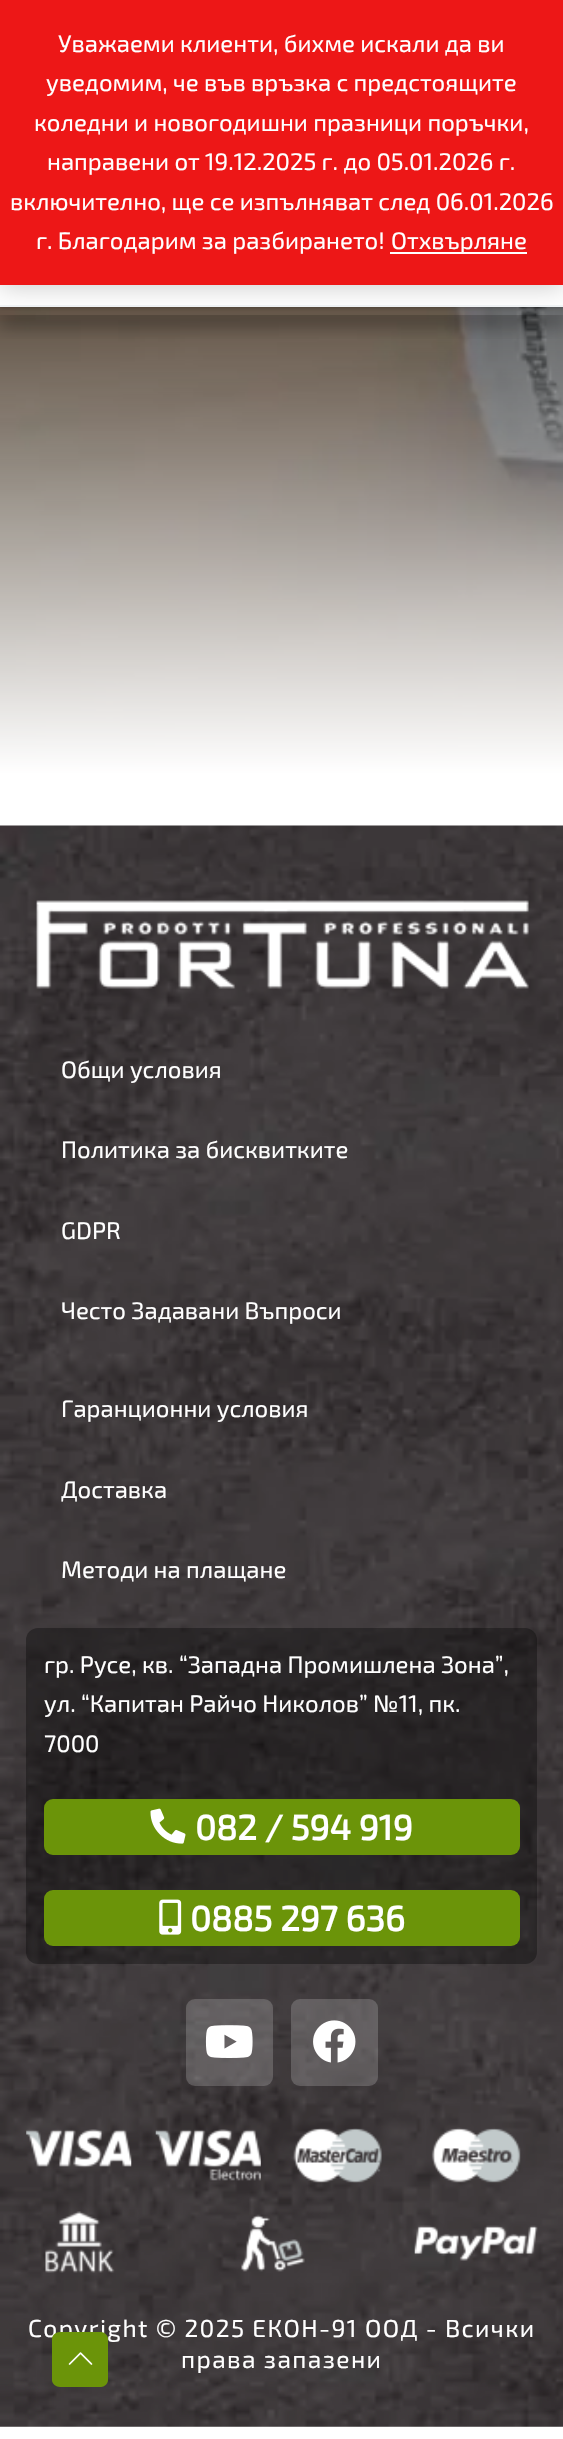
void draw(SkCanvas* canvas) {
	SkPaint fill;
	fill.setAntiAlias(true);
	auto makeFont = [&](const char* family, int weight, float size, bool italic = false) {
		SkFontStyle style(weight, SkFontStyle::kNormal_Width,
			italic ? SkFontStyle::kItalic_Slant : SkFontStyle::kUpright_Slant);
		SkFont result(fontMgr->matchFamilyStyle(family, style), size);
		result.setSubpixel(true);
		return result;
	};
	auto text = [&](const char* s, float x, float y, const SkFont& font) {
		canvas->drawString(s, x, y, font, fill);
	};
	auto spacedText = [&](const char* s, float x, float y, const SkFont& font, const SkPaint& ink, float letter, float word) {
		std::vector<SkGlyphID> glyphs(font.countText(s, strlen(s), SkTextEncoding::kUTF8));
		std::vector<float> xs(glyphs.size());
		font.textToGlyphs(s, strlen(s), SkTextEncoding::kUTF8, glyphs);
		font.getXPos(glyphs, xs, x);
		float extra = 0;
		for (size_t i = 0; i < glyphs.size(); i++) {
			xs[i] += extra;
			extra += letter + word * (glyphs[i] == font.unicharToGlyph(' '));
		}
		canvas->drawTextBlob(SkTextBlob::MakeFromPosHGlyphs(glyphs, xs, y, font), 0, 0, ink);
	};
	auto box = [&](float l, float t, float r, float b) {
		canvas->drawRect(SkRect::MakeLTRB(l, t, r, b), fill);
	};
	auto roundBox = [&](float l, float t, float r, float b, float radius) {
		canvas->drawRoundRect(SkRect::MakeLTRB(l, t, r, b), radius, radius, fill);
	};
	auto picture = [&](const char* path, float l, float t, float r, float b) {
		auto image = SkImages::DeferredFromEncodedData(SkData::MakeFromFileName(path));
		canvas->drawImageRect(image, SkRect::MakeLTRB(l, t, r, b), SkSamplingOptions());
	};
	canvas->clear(0xFFFFFFFF);
	picture("image0.png", 0, 307, 563, 773);
	fill.setColor(0x33000000);
	fill.setMaskFilter(SkMaskFilter::MakeBlur(kNormal_SkBlurStyle, 2));
	canvas->drawRect(SkRect::MakeLTRB(0, 170, 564, 308), fill);
	fill.setMaskFilter(nullptr);
	canvas->save();
	canvas->clipRect(SkRect::MakeLTRB(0, 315, 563, 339));
	fill.setColor(0x80000000);
	fill.setMaskFilter(SkMaskFilter::MakeBlur(kNormal_SkBlurStyle, 9));
	canvas->drawRect(SkRect::MakeLTRB(0, 315, 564, 324), fill);
	fill.setMaskFilter(nullptr);
	canvas->restore();
	fill.setColor(0xFFFFFFFF);
	box(0, 285, 563, 305);
	fill.setColor(0xFFF2F5F7);
	box(0, 305, 563, 307);
	fill.setColor(0x33000000);
	fill.setMaskFilter(SkMaskFilter::MakeBlur(kNormal_SkBlurStyle, 12));
	canvas->drawRect(SkRect::MakeLTRB(0, 2, 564, 287), fill);
	fill.setMaskFilter(nullptr);
	fill.setColor(0xFFED1717);
	box(0, 0, 563, 285);
	fill.setColor(0xFFFFFFFF);
	box(390, 252, 527, 254);
	picture("image1.png", 0, 825, 563, 2427);
	picture("image2.png", 36, 900, 529, 989);
	fill.setColor(0x57000000);
	roundBox(26, 1628, 537, 1964, 12);
	fill.setColor(0xFF6B9409);
	roundBox(44, 1799, 520, 1855, 9);
	picture("image3.png", 150, 1808, 186, 1844);
	roundBox(44, 1890, 520, 1946, 9);
	picture("image4.png", 159, 1899, 182, 1935);
	fill.setColor(0x2EFFFFFF);
	roundBox(186, 1999, 273, 2086, 9);
	picture("image5.png", 205, 2025, 253, 2058);
	roundBox(291, 1999, 378, 2086, 9);
	picture("image6.png", 313, 2020, 356, 2063);
	picture("image7.png", 26, 2129, 132, 2168);
	picture("image8.png", 155, 2129, 261, 2181);
	picture("image9.png", 293, 2128, 382, 2183);
	picture("image10.png", 431, 2127, 521, 2183);
	picture("image11.png", 45, 2211, 115, 2273);
	picture("image12.png", 241, 2214, 305, 2272);
	picture("image13.png", 414, 2225, 538, 2261);
	auto font1 = makeFont("Exo 2", 400, 23.9f);
	fill.setColor(0xFFFFFFFF);
	text("Уважаеми клиенти, бихме искали да ви", 58, 52, font1);
	text("уведомим, че във връзка с предстоящите", 46, 91, font1);
	text("коледни и новогодишни празници поръчки,", 34, 131, font1);
	text("направени от 19.12.2025 г. до 05.01.2026 г.", 47, 170, font1);
	text("включително, ще се изпълняват след 06.01.2026", 10, 210, font1);
	text("г. Благодарим за разбирането!", 36, 249, font1);
	text("Отхвърляне", 391, 249, font1);
	text("Общи условия", 61, 1078, font1);
	text("Политика за бисквитките", 61, 1158, font1);
	text("GDPR", 61, 1239, font1);
	text("Често Задавани Въпроси", 61, 1319, font1);
	text("Гаранционни условия", 61, 1417, font1);
	text("Доставка", 61, 1498, font1);
	text("Методи на плащане", 61, 1578, font1);
	text("гр. Русе, кв. “Западна Промишлена Зона”,", 44, 1673, font1);
	text("ул. “Капитан Райчо Николов” №11, пк.", 44, 1712, font1);
	text("7000", 44, 1752, font1);
	auto font2 = makeFont("Exo 2", 700, 35);
	text("082 / 594 919", 195, 1840, font2);
	text("0885 297 636", 190, 1931, font2);
	auto font3 = makeFont("Exo 2", 400, 24.5f);
	spacedText("Copyright © 2025 ЕКОН-91 ООД - Всички", 28, 2337, font3, fill, 1.4f, 0);
	spacedText("права запазени", 181, 2368, font3, fill, 1.4f, 0);
	fill.setColor(0xFF6B9409);
	canvas->drawPath(SkPathBuilder().moveTo(101, 2387).lineTo(60, 2387).cubicTo(56, 2387, 52, 2384, 52, 2380).lineTo(52, 2339).cubicTo(52, 2335, 56, 2332, 60, 2332).lineTo(101, 2332).cubicTo(104, 2332, 108, 2335, 108, 2339).lineTo(108, 2380).cubicTo(108, 2384, 104, 2387, 101, 2387).close().detach(), fill);
	picture("image14.png", 68, 2352, 93, 2365);
}
